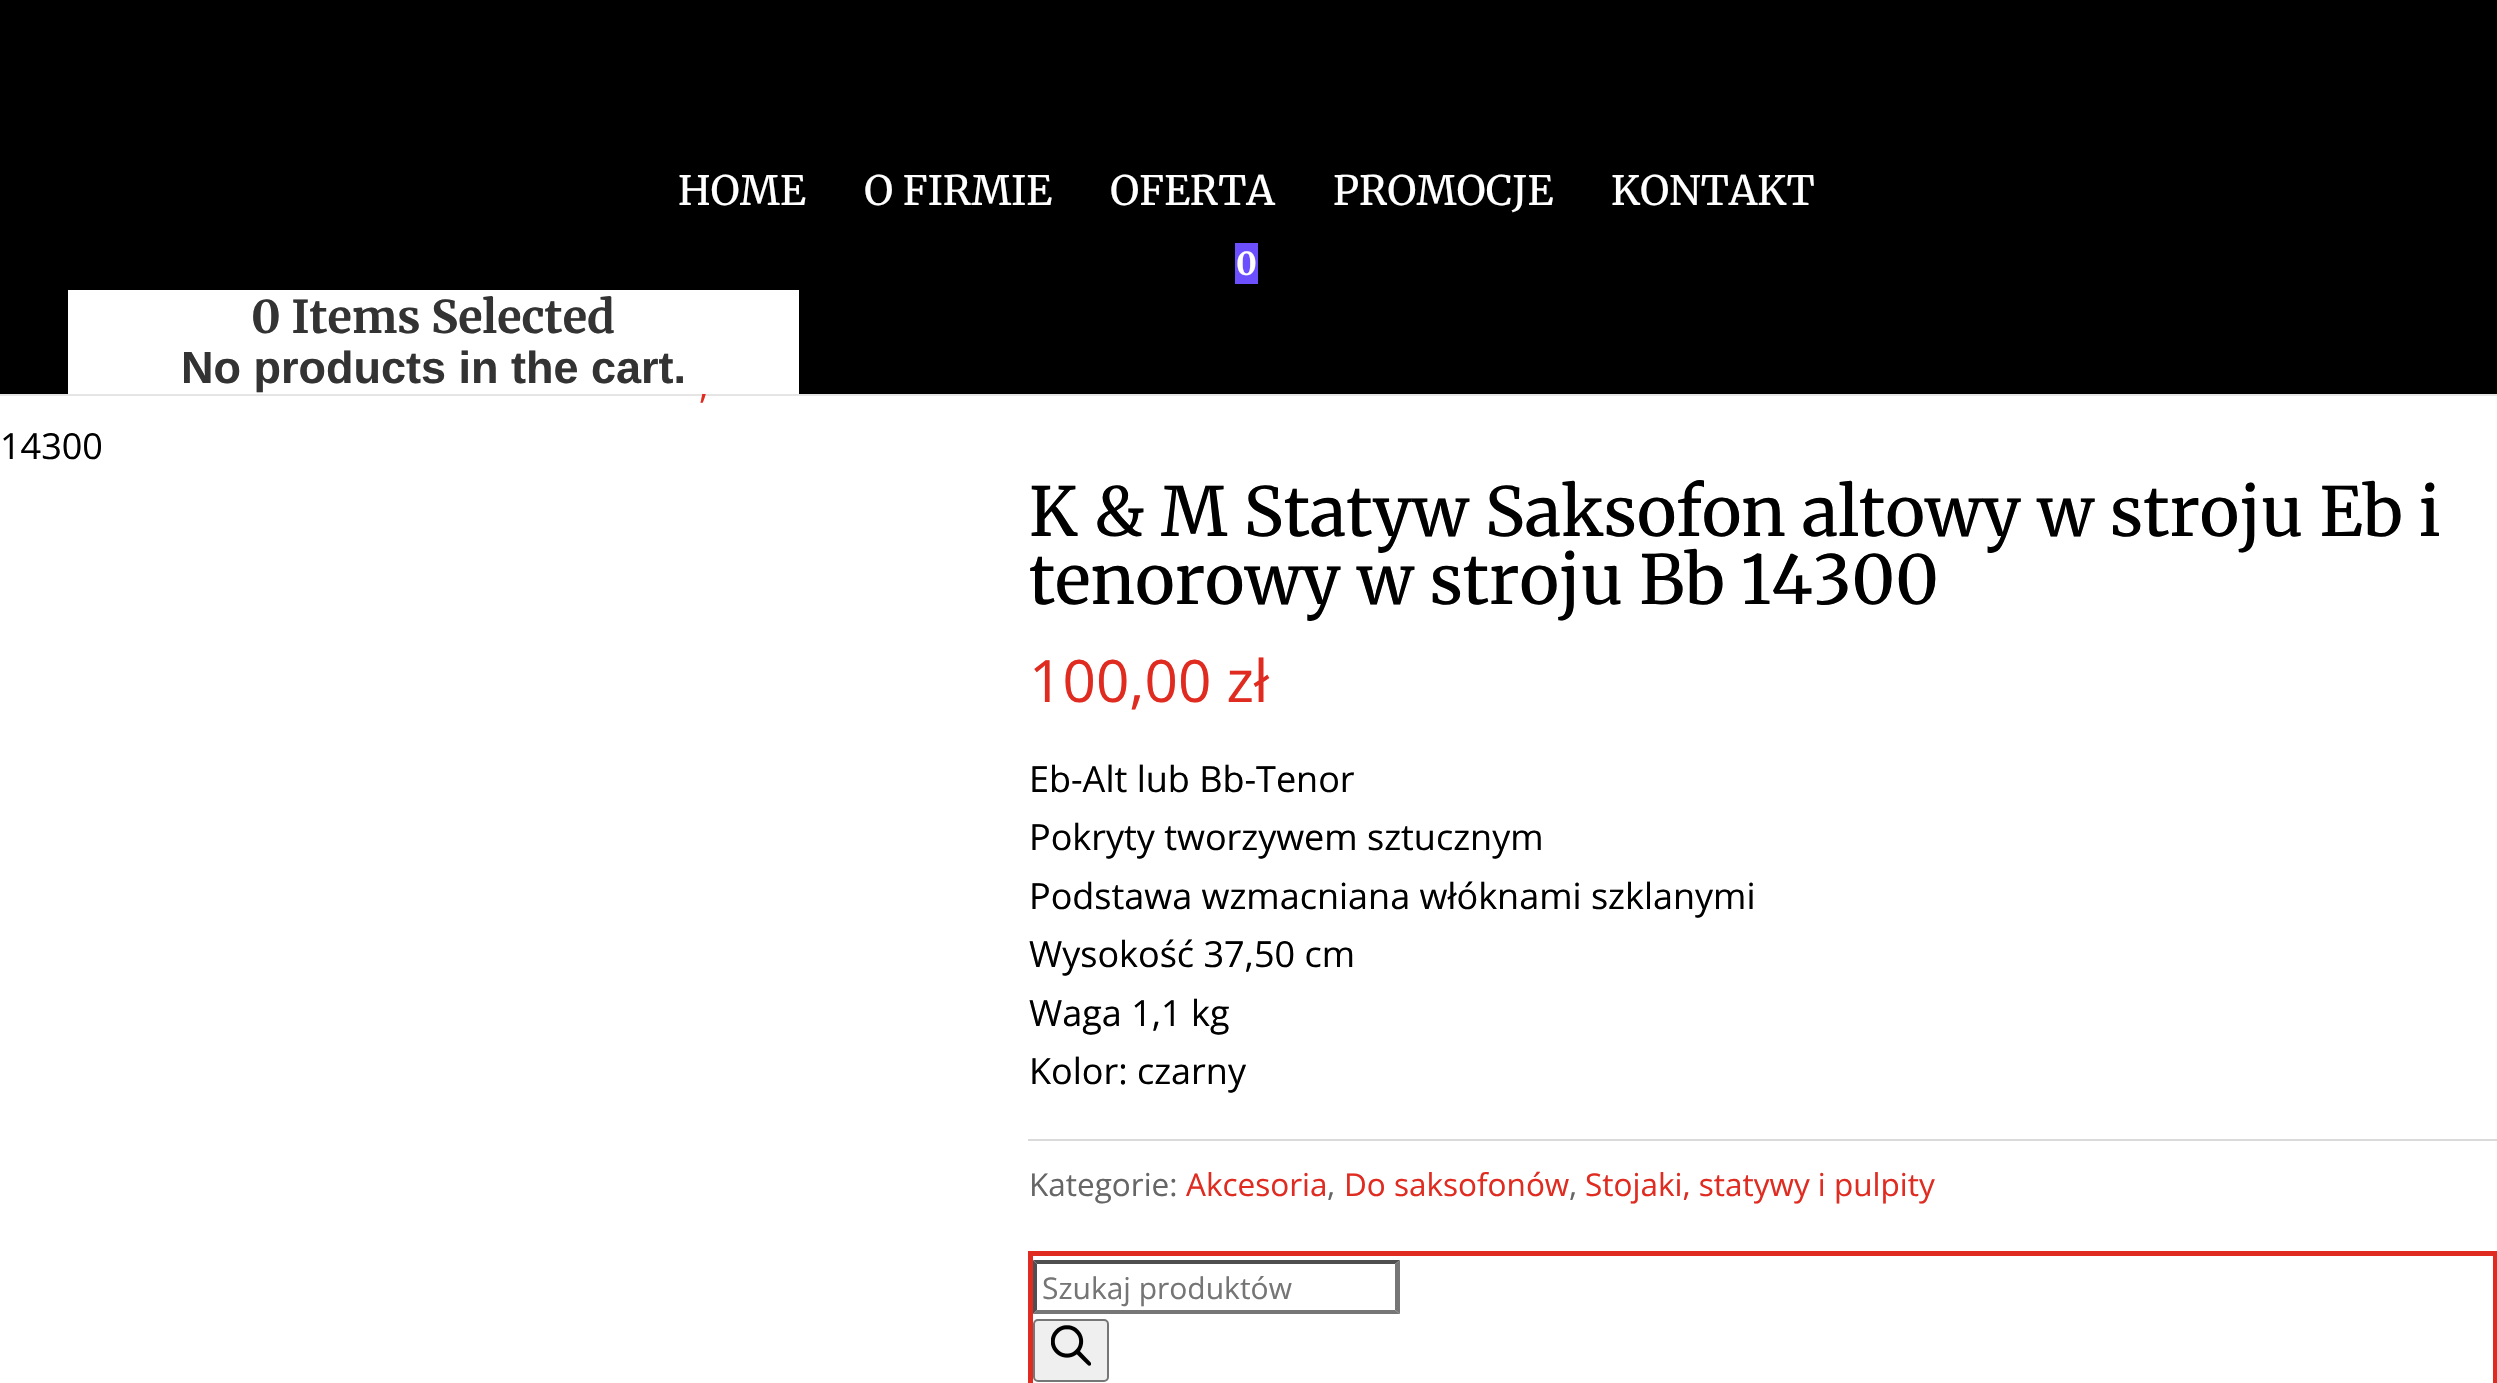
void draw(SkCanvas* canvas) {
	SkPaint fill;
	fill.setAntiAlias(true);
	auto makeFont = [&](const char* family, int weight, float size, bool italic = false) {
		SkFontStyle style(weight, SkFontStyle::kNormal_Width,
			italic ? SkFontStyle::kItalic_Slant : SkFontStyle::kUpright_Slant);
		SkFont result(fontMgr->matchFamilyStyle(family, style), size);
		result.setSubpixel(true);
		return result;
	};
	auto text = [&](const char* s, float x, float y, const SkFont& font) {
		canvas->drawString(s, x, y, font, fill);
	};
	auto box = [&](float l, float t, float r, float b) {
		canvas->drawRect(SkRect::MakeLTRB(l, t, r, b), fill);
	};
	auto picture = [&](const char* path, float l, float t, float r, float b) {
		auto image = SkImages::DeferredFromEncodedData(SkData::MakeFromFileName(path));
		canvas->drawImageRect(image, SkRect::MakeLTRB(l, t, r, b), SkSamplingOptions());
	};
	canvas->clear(0xFFFFFFFF);
	fill.setColor(0x1A000000);
	canvas->drawPath(SkPathBuilder().moveTo(0, 394).lineTo(0, 396).lineTo(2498, 396).lineTo(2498, 2).lineTo(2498, 394).close().detach(), fill);
	fill.setColor(0xFFDADADA);
	box(1028, 1139, 2497, 1141);
	fill.setStyle(SkPaint::kStroke_Style);
	fill.setStrokeWidth(5);
	fill.setColor(0xFFE02B20);
	canvas->drawRect(SkRect::MakeLTRB(1030.5f, 1253.5f, 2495.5f, 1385.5f), fill);
	fill.setStyle(SkPaint::kFill_Style);
	fill.setColor(0xFF4F4F4F);
	canvas->drawPath(SkPathBuilder().moveTo(1033, 1260).lineTo(1400, 1260).lineTo(1395, 1264).lineTo(1037, 1264).close().detach(), fill);
	fill.setColor(0xFF767676);
	canvas->drawPath(SkPathBuilder().moveTo(1400, 1260).lineTo(1400, 1314).lineTo(1395, 1310).lineTo(1395, 1264).close().detach(), fill);
	canvas->drawPath(SkPathBuilder().moveTo(1400, 1314).lineTo(1033, 1314).lineTo(1037, 1310).lineTo(1395, 1310).close().detach(), fill);
	fill.setColor(0xFF4F4F4F);
	canvas->drawPath(SkPathBuilder().moveTo(1033, 1314).lineTo(1033, 1260).lineTo(1037, 1264).lineTo(1037, 1310).close().detach(), fill);
	fill.setColor(0xFFEFEFEF);
	canvas->drawRoundRect(SkRect::MakeLTRB(1034, 1320, 1108, 1381), 4, 4, fill);
	fill.setStyle(SkPaint::kStroke_Style);
	fill.setStrokeWidth(2);
	fill.setColor(0xFF767676);
	canvas->drawRoundRect(SkRect::MakeLTRB(1034, 1320, 1108, 1381), 4, 4, fill);
	picture("image0.png", 1051, 1325, 1091, 1366);
	auto font1 = makeFont("Open Sans", 400, 36);
	fill.setStyle(SkPaint::kFill_Style);
	fill.setColor(0xFFE02B20);
	text(",", 699, 398, font1);
	fill.setColor(0xFF000000);
	box(0, 0, 2497, 394);
	auto font2 = makeFont("Merriweather", 300, 40.5f);
	fill.setColor(0xFFFFFFFF);
	text("KONTAKT", 1611, 205, font2);
	text("PROMOCJE", 1333, 205, font2);
	text("OFERTA", 1110, 205, font2);
	text("O FIRMIE", 864, 205, font2);
	text("HOME", 678, 205, font2);
	box(68, 290, 799, 394);
	auto font3 = makeFont("Liberation Sans", 700, 45);
	fill.setColor(0xFF333333);
	text("No products in the cart.", 181, 383, font3);
	auto font4 = makeFont("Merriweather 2", 300, 45);
	text("0 Items Selected", 251, 333, font4);
	fill.setColor(0xFF6C4FFF);
	box(1235, 243, 1258, 284);
	auto font5 = makeFont("Merriweather 2", 300, 31.5f);
	fill.setColor(0xFFFFFFFF);
	text("0", 1236, 275, font5);
	fill.setColor(0xFF000000);
	text("14300", 0, 459, font1);
	auto font6 = makeFont("Merriweather", 300, 67.5f);
	text("K & M Statyw Saksofon altowy w stroju Eb i", 1029, 536, font6);
	text("tenorowy w stroju Bb 14300", 1029, 604, font6);
	auto font7 = makeFont("Open Sans", 400, 58.5f);
	fill.setColor(0xFFE02B20);
	text("100,00 zł", 1029, 702, font7);
	fill.setColor(0xFF000000);
	text("Eb-Alt lub Bb-Tenor", 1029, 792, font1);
	text("Pokryty tworzywem sztucznym", 1029, 850, font1);
	text("Podstawa wzmacniana włóknami szklanymi", 1029, 909, font1);
	text("Wysokość 37,50 cm", 1029, 967, font1);
	text("Waga 1,1 kg", 1029, 1026, font1);
	text("Kolor: czarny", 1029, 1084, font1);
	auto font8 = makeFont("Open Sans", 400, 31.5f);
	fill.setColor(0xFF666666);
	text("Kategorie:", 1029, 1196, font8);
	fill.setColor(0xFFE02B20);
	text("Akcesoria", 1186, 1196, font8);
	fill.setColor(0xFF666666);
	text(",", 1327, 1196, font8);
	fill.setColor(0xFFE02B20);
	text("Do saksofonów", 1344, 1196, font8);
	fill.setColor(0xFF666666);
	text(",", 1569, 1196, font8);
	fill.setColor(0xFFE02B20);
	text("Stojaki, statywy i pulpity", 1585, 1196, font8);
	auto font9 = makeFont("Open Sans", 400, 30);
	fill.setColor(0xFF757575);
	text("Szukaj produktów", 1042, 1299, font9);
}
